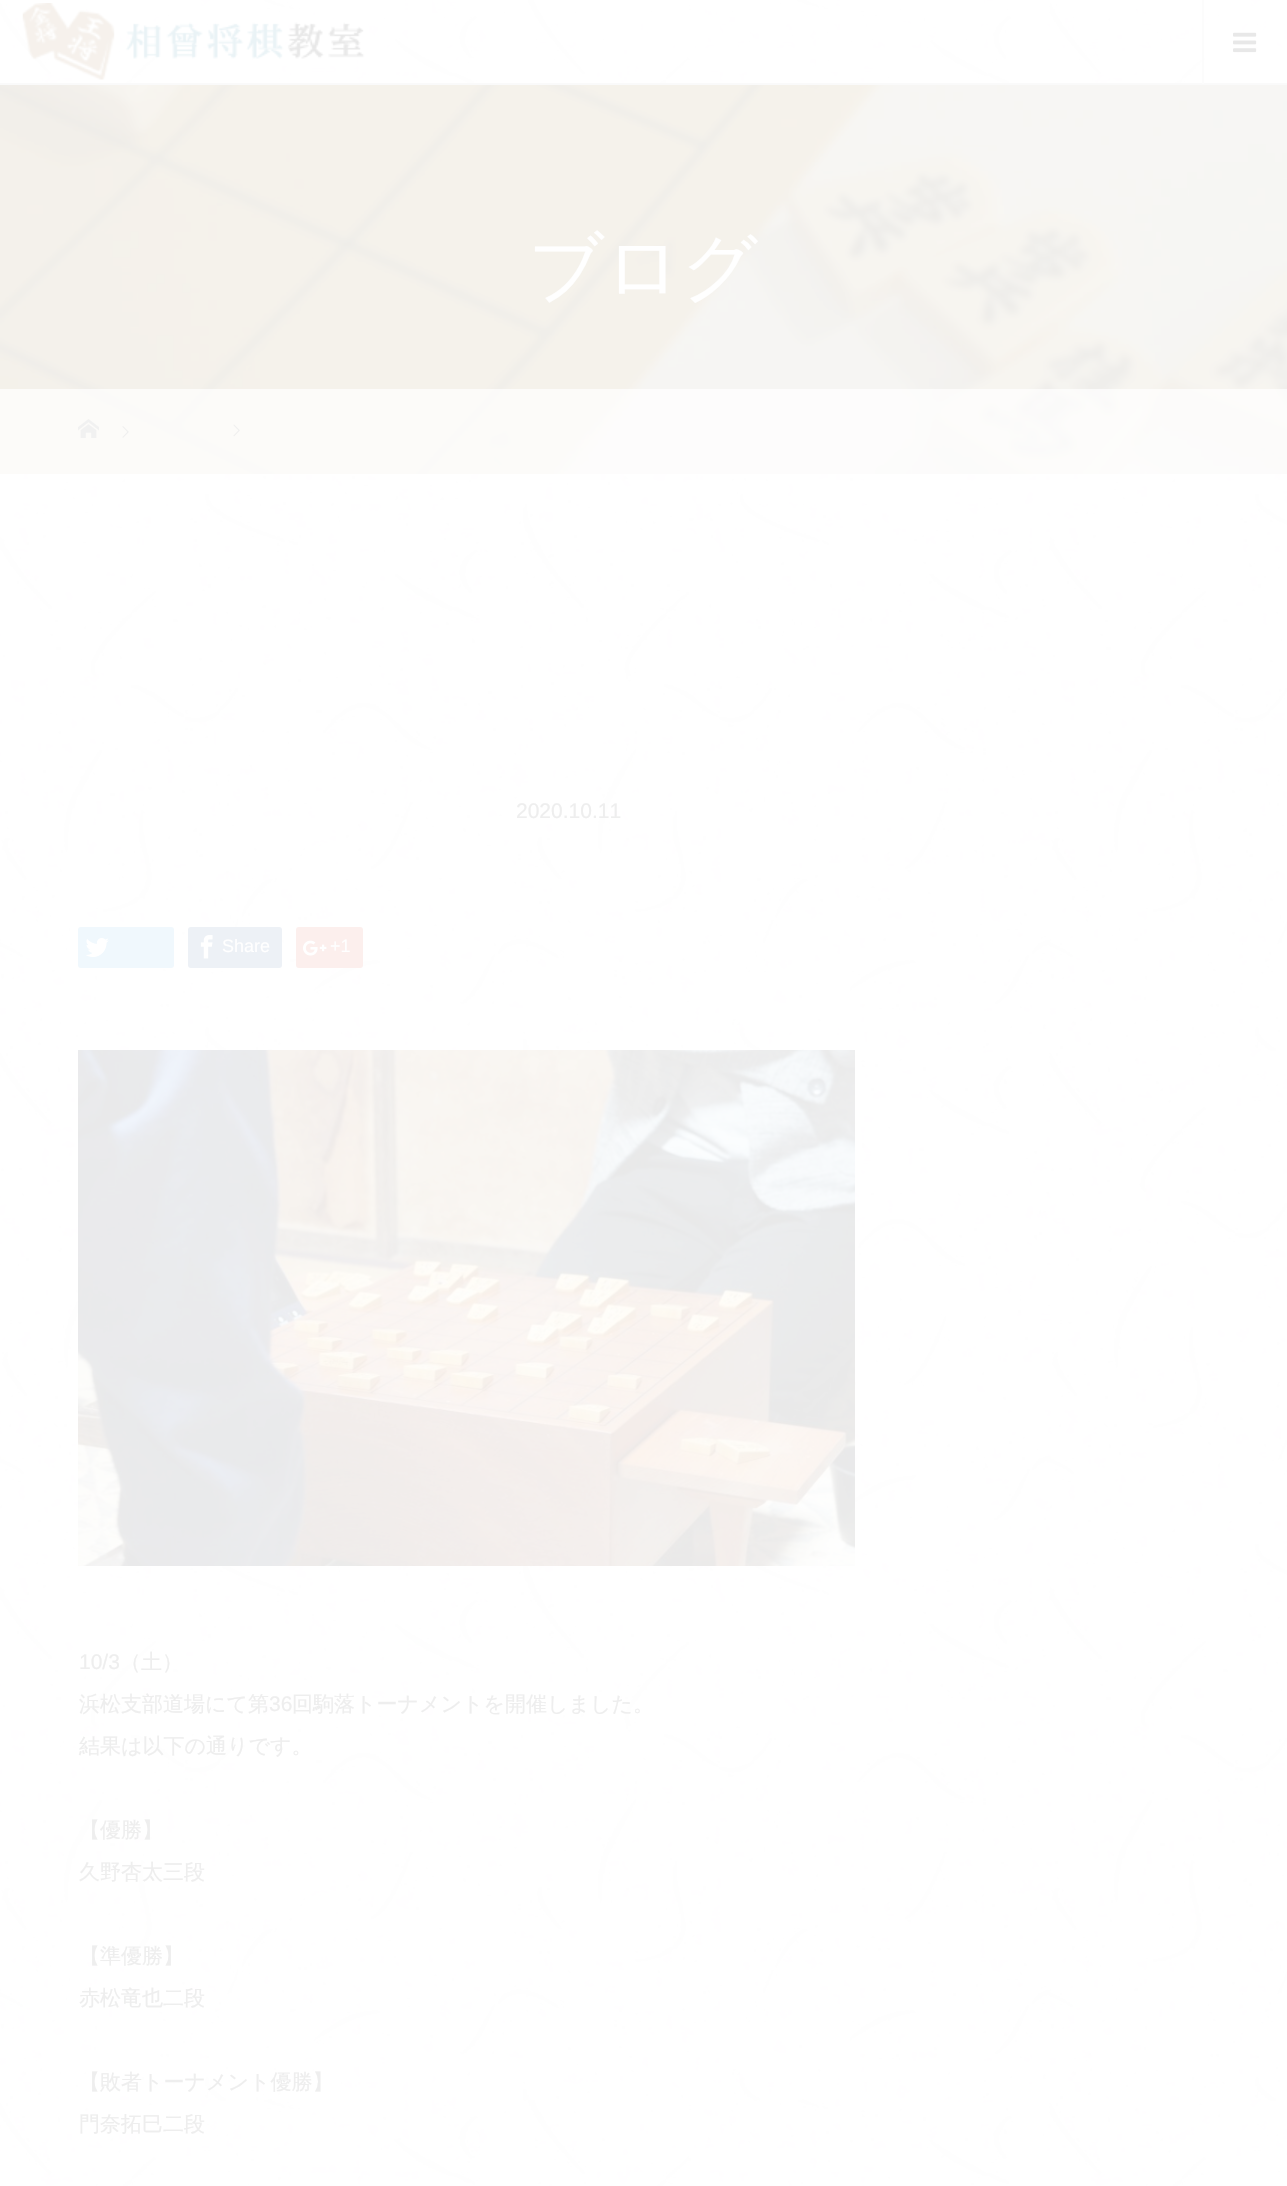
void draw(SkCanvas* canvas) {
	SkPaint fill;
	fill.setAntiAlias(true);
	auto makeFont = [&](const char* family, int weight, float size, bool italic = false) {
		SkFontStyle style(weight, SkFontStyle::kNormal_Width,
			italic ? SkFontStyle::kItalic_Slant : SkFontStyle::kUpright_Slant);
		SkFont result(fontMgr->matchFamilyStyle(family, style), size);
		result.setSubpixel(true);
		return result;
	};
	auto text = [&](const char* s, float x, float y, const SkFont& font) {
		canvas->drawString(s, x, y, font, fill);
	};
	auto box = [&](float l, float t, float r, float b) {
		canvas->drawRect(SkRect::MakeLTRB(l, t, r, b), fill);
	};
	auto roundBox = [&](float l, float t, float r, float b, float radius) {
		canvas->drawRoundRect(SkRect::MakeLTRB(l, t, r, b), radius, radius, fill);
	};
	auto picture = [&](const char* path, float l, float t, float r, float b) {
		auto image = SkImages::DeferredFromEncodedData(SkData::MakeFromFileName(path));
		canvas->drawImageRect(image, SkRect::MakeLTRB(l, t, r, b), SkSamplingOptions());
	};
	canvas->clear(0xFFFFFFFF);
	picture("image0.png", 0, 474, 1287, 2186);
	picture("image1.png", 0, 0, 1287, 83);
	fill.setColor(0xFFFAFAFA);
	box(0, 83, 1287, 85);
	picture("image2.png", 22, 3, 365, 80);
	fill.setColor(0xFFFCFCFC);
	box(1202, 0, 1204, 84);
	picture("image3.png", 1233, 32, 1257, 53);
	picture("image4.png", 0, 85, 1287, 474);
	fill.setColor(0xB3FFFFFF);
	box(0, 389, 1287, 474);
	picture("image5.png", 78, 419, 99, 438);
	picture("image6.png", 122, 426, 129, 438);
	picture("image7.png", 233, 424, 240, 437);
	fill.setColor(0xFFF0F8FD);
	roundBox(78, 927, 174, 968, 3);
	picture("image8.png", 85, 938, 109, 957);
	fill.setColor(0xFFEDF1F6);
	roundBox(188, 927, 282, 968, 3);
	picture("image9.png", 200, 935, 213, 959);
	fill.setColor(0xFFFCEFED);
	roundBox(296, 927, 363, 968, 3);
	picture("image10.png", 303, 940, 327, 956);
	picture("image11.png", 78, 1050, 855, 1566);
	auto font1 = makeFont("WenQuanYi Zen Hei", 500, 75);
	fill.setColor(0xFFFFFFFF);
	text("ブログ", 528, 293, font1);
	auto font2 = makeFont("Liberation Sans", 400, 21);
	fill.setColor(0xFFEEEEEE);
	text("2020.10.11", 516, 818, font2);
	auto font3 = makeFont("Liberation Sans", 400, 18);
	fill.setColor(0xFFFFFFFF);
	text("Share", 222, 952, font3);
	text("+1", 330, 952, font3);
	fill.setColor(0xFFEEEEEE);
	text("10/3", 79, 1669, font2);
	auto font4 = makeFont("WenQuanYi Zen Hei", 500, 21);
	text("（土）", 120, 1669, font4);
	text("浜松支部道場にて第", 79, 1711, font4);
	text("36", 269, 1711, font2);
	text("回駒落トーナメントを開催しました。", 292, 1711, font4);
	text("結果は以下の通りです。", 79, 1753, font4);
	text("【優勝】", 79, 1837, font4);
	text("久野杏太三段", 79, 1879, font4);
	text("【準優勝】", 79, 1963, font4);
	text("赤松竜也二段", 79, 2005, font4);
	text("【敗者トーナメント優勝】", 79, 2089, font4);
	text("門奈拓巳二段", 79, 2131, font4);
}
